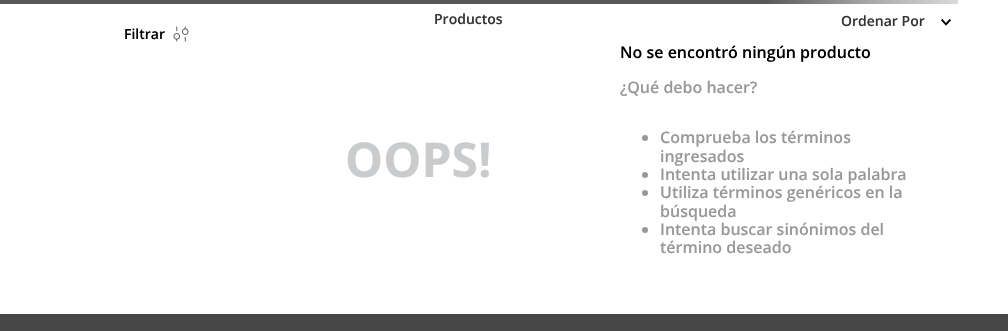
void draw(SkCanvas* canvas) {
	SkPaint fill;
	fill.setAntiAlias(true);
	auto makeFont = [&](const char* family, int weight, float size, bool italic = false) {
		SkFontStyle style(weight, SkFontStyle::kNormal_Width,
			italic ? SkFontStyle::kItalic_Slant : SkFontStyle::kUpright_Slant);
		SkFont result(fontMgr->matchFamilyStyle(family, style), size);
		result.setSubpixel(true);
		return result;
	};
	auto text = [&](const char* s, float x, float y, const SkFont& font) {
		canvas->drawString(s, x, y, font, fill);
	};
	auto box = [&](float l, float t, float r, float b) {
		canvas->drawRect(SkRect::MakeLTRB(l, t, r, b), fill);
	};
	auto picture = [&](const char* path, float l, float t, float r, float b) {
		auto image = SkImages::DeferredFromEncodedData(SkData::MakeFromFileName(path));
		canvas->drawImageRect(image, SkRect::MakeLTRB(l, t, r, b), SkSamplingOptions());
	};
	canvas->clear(0xFFFFFFFF);
	{
		const SkColor colors[] = {0xFF595959, 0xFFA3A3A3, 0xFFDADADA};
		const float stops[] = {0.8f, 0.9f, 1};
		const SkPoint ends[] = {{0, 2}, {958, 2}};
		fill.setShader(SkGradientShader::MakeLinear(ends, colors, stops, 3, SkTileMode::kClamp));
		fill.setAlpha(255);
	}
	box(0, 0, 958, 4);
	picture("image0.png", 173, 26, 189, 42);
	picture("image1.png", 941, 19, 951, 26);
	fill.setShader(nullptr);
	fill.setColor(0xFF979899);
	canvas->drawCircle(645, 138, 3, fill);
	canvas->drawCircle(645, 175, 3, fill);
	canvas->drawCircle(645, 193, 3, fill);
	canvas->drawCircle(645, 230, 3, fill);
	fill.setColor(0xFF474747);
	box(0, 314, 1008, 331);
	auto font1 = makeFont("Open Sans", 600, 14);
	fill.setColor(0xFF000000);
	text("Filtrar", 124, 39, font1);
	auto font2 = makeFont("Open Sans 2", 600, 14);
	fill.setColor(0xFF333333);
	text("Productos", 434, 24, font2);
	text("Ordenar Por", 841, 26, font2);
	auto font3 = makeFont("Open Sans", 700, 48);
	fill.setColor(0xFFCACBCC);
	text("OOPS!", 345, 177, font3);
	auto font4 = makeFont("Open Sans", 600, 16);
	fill.setColor(0xFF000000);
	text("No se encontró ningún producto", 620, 58, font4);
	fill.setColor(0xFF979899);
	text("¿Qué debo hacer?", 620, 93, font4);
	text("Comprueba los términos", 660, 143, font4);
	text("ingresados", 660, 162, font4);
	text("Intenta utilizar una sola palabra", 660, 180, font4);
	text("Utiliza términos genéricos en la", 660, 198, font4);
	text("búsqueda", 660, 217, font4);
	text("Intenta buscar sinónimos del", 660, 235, font4);
	text("término deseado", 660, 253, font4);
}
